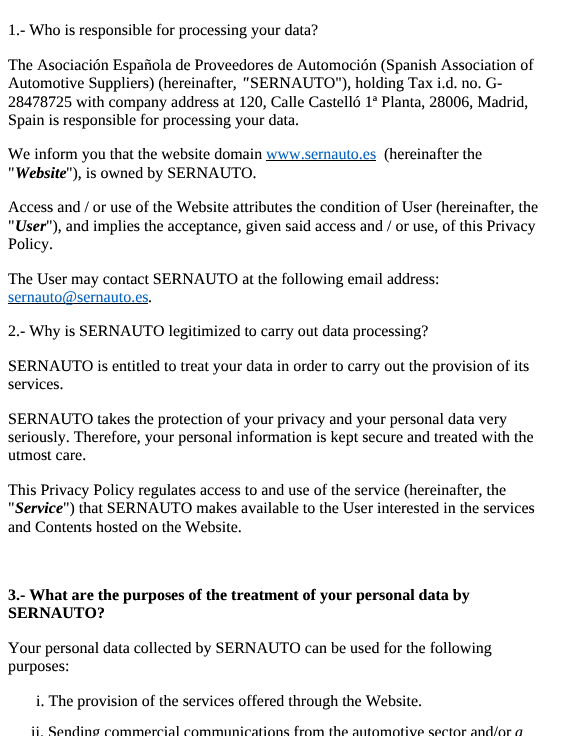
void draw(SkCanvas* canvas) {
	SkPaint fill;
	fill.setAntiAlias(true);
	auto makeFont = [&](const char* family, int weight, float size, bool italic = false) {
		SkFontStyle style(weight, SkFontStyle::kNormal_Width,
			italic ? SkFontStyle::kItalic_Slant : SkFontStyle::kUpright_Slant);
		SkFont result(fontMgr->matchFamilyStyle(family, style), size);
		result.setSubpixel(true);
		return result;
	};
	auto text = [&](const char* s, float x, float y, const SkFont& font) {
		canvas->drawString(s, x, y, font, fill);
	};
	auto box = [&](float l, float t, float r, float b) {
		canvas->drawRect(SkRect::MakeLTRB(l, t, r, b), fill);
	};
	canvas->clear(0xFFFFFFFF);
	fill.setColor(0xFF000000);
	box(266, 160, 376, 161);
	box(8, 303, 148, 304);
	auto font1 = makeFont("Liberation Serif", 400, 16);
	text("1.- Who is responsible for processing your data?", 8, 35, font1);
	text("The Asociación Española de Proveedores de Automoción (Spanish Association of", 8, 70, font1);
	text("Automotive Suppliers) (hereinafter,", 8, 88, font1);
	auto font2 = makeFont("Liberation Serif", 700, 16, true);
	text("\"", 241, 88, font2);
	text("SERNAUTO\"), holding Tax i.d. no. G-", 250, 88, font1);
	text("28478725 with company address at 120, Calle Castelló 1ª Planta, 28006, Madrid,", 8, 107, font1);
	text("Spain is responsible for processing your data.", 8, 125, font1);
	text("We inform you that the website domain", 8, 159, font1);
	fill.setColor(0xFF0563C1);
	text("www.sernauto.es", 266, 159, font1);
	fill.setColor(0xFF000000);
	text("(hereinafter the", 384, 159, font1);
	text("\"", 8, 178, font1);
	text("Website", 15, 178, font2);
	text("\"), is owned by SERNAUTO.", 66, 178, font1);
	text("Access and / or use of the Website attributes the condition of User (hereinafter, the", 8, 212, font1);
	text("\"", 8, 231, font1);
	text("User", 15, 231, font2);
	text("\"), and implies the acceptance, given said access and / or use, of this Privacy", 46, 231, font1);
	text("Policy.", 8, 249, font1);
	text("The User may contact SERNAUTO at the following email address:", 8, 284, font1);
	fill.setColor(0xFF0563C1);
	text("sernauto@sernauto.es", 8, 302, font1);
	fill.setColor(0xFF000000);
	text(".", 148, 302, font1);
	text("2.- Why is SERNAUTO legitimized to carry out data processing?", 8, 336, font1);
	text("SERNAUTO is entitled to treat your data in order to carry out the provision of its", 8, 371, font1);
	text("services.", 8, 389, font1);
	text("SERNAUTO takes the protection of your privacy and your personal data very", 8, 424, font1);
	text("seriously. Therefore, your personal information is kept secure and treated with the", 8, 442, font1);
	text("utmost care.", 8, 460, font1);
	text("This Privacy Policy regulates access to and use of the service (hereinafter, the", 8, 495, font1);
	text("\"", 8, 513, font1);
	text("Service", 15, 513, font2);
	text("\") that SERNAUTO makes available to the User interested in the services", 63, 513, font1);
	text("and Contents hosted on the Website.", 8, 532, font1);
	auto font3 = makeFont("Liberation Serif", 700, 16);
	text("3.- What are the purposes of the treatment of your personal data by", 8, 600, font3);
	text("SERNAUTO?", 8, 618, font3);
	text("Your personal data collected by SERNAUTO can be used for the following", 8, 653, font1);
	text("purposes:", 8, 671, font1);
	text("i. The provision of the services offered through the Website.", 36, 706, font1);
	text("ii. Sending commercial communications from the automotive sector and/or", 31, 737, font1);
	auto font4 = makeFont("Liberation Serif", 400, 16, true);
	text("a", 515, 737, font4);
}
